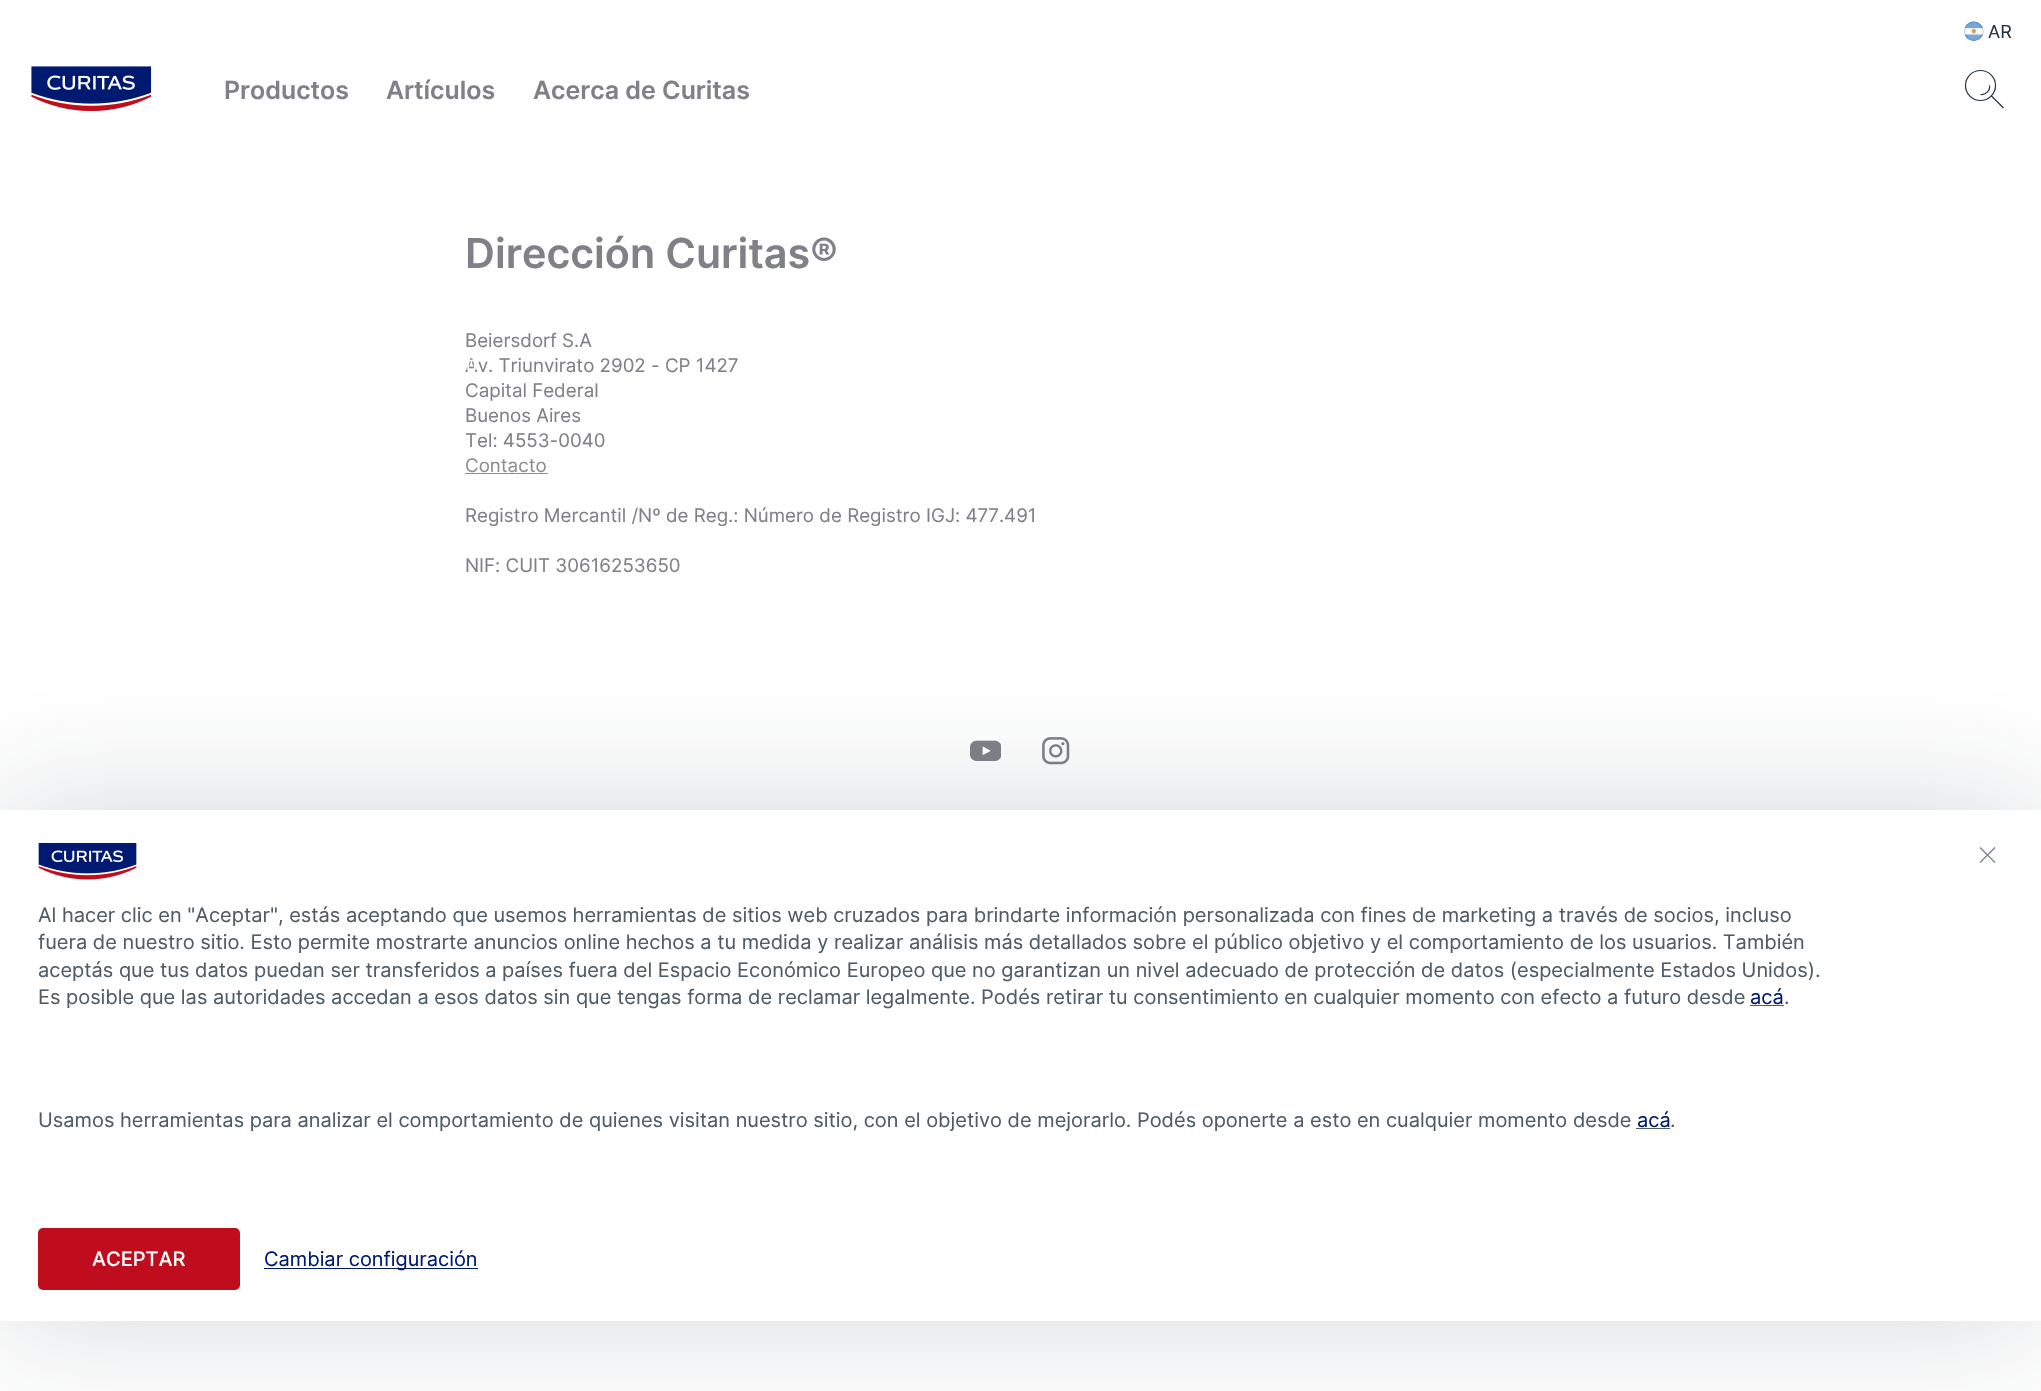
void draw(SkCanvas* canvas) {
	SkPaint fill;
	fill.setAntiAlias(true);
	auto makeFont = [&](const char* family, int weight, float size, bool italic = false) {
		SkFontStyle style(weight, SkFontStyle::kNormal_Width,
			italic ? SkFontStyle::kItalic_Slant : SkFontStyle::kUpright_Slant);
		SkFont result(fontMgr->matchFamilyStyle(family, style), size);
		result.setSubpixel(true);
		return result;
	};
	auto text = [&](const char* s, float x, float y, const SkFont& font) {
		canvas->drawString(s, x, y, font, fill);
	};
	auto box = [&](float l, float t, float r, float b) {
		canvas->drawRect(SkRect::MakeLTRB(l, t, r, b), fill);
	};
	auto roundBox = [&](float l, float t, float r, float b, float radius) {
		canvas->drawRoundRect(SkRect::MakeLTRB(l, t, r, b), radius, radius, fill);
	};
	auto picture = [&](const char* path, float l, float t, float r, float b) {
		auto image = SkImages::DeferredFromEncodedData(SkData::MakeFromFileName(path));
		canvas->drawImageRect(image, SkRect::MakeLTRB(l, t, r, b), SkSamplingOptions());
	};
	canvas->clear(0xFFFFFFFF);
	picture("image0.png", 1964, 21, 1984, 42);
	picture("image1.png", 31, 66, 152, 112);
	fill.setStyle(SkPaint::kStroke_Style);
	fill.setStrokeWidth(1.2f);
	fill.setColor(0xFF223341);
	canvas->drawCircle(1980.5f, 85.5f, 15, fill);
	canvas->drawPath(SkPathBuilder().moveTo(1991, 95.5f).lineTo(2003.5f, 108).moveTo(1989.5f, 85.5f).cubicTo(1990.5f, 90.5f, 1985.5f, 95, 1980.5f, 94.5f).detach(), fill);
	fill.setStyle(SkPaint::kFill_Style);
	fill.setColor(0xFF8E8E8E);
	box(465, 473, 548, 474);
	picture("image2.png", 970, 740, 1001, 761);
	picture("image3.png", 1042, 737, 1070, 765);
	fill.setColor(0x33223341);
	fill.setMaskFilter(SkMaskFilter::MakeBlur(kNormal_SkBlurStyle, 62.5f));
	canvas->drawRect(SkRect::MakeLTRB(0, 810, 2041, 1321), fill);
	fill.setMaskFilter(nullptr);
	fill.setColor(0xFFFFFFFF);
	box(0, 810, 2041, 1321);
	picture("image4.png", 38, 843, 137, 880);
	fill.setColor(0xFF4E5C67);
	box(1750, 1005, 1784, 1006);
	box(1636, 1128, 1670, 1129);
	fill.setStyle(SkPaint::kStroke_Style);
	fill.setStrokeWidth(1.4f);
	fill.setColor(0xFF7A858D);
	canvas->drawPath(SkPathBuilder().moveTo(1980, 847.5f).lineTo(1995, 862.5f).moveTo(1995, 847.5f).lineTo(1980, 862.5f).detach(), fill);
	fill.setStyle(SkPaint::kFill_Style);
	fill.setColor(0xFFC00D1E);
	roundBox(38, 1228, 240, 1290, 5);
	fill.setColor(0xFF001A72);
	box(264, 1268, 478, 1269);
	auto font1 = makeFont("Inter", 400, 18);
	fill.setColor(0xFF223341);
	text("AR", 1988, 38, font1);
	auto font2 = makeFont("Inter", 600, 25);
	fill.setColor(0xFF808088);
	text("Productos", 224, 99, font2);
	text("Artículos", 386, 99, font2);
	text("Acerca de Curitas", 533, 99, font2);
	auto font3 = makeFont("Inter", 600, 41.25f);
	text("Dirección Curitas®", 465, 268, font3);
	auto font4 = makeFont("Inter", 400, 18.75f);
	text("Beiersdorf S.A", 465, 347, font4);
	text("Av. Triunvirato 2902 - CP 1427", 465, 372, font4);
	fill.setColor(0xFFFFFFFF);
	text("n", 466, 370, font4);
	fill.setColor(0xFF808088);
	text("Capital Federal", 465, 397, font4);
	text("Buenos Aires", 465, 422, font4);
	text("Tel: 4553-0040", 465, 447, font4);
	fill.setColor(0xFF8E8E8E);
	text("Contacto", 465, 472, font4);
	fill.setColor(0xFF808088);
	text("Registro Mercantil /Nº de Reg.: Número de Registro IGJ: 477.491", 465, 522, font4);
	text("NIF: CUIT 30616253650", 465, 572, font4);
	auto font5 = makeFont("Inter", 400, 20);
	fill.setColor(0xFF4E5C67);
	text("Al hacer clic en \"Aceptar\", estás aceptando que usemos herramientas de sitios web cruzados para brindarte información personalizada con fines de marketing a través de socios, incluso", 38, 922, font5);
	text("fuera de nuestro sitio. Esto permite mostrarte anuncios online hechos a tu medida y realizar análisis más detallados sobre el público objetivo y el comportamiento de los usuarios. También", 38, 949, font5);
	text("aceptás que tus datos puedan ser transferidos a países fuera del Espacio Económico Europeo que no garantizan un nivel adecuado de protección de datos (especialmente Estados Unidos).", 38, 977, font5);
	text("Es posible que las autoridades accedan a esos datos sin que tengas forma de reclamar legalmente. Podés retirar tu consentimiento en cualquier momento con efecto a futuro desde", 38, 1004, font5);
	fill.setColor(0xFF001A72);
	text("acá", 1750, 1004, font5);
	fill.setColor(0xFF4E5C67);
	text(".", 1784, 1004, font5);
	text("Usamos herramientas para analizar el comportamiento de quienes visitan nuestro sitio, con el objetivo de mejorarlo. Podés oponerte a esto en cualquier momento desde", 38, 1127, font5);
	fill.setColor(0xFF001A72);
	text("acá", 1637, 1127, font5);
	fill.setColor(0xFF4E5C67);
	text(".", 1670, 1127, font5);
	auto font6 = makeFont("Inter", 500, 20);
	fill.setColor(0xFFFFFFFF);
	text("ACEPTAR", 92, 1266, font6);
	fill.setColor(0xFF001A72);
	text("Cambiar configuración", 264, 1266, font5);
}
